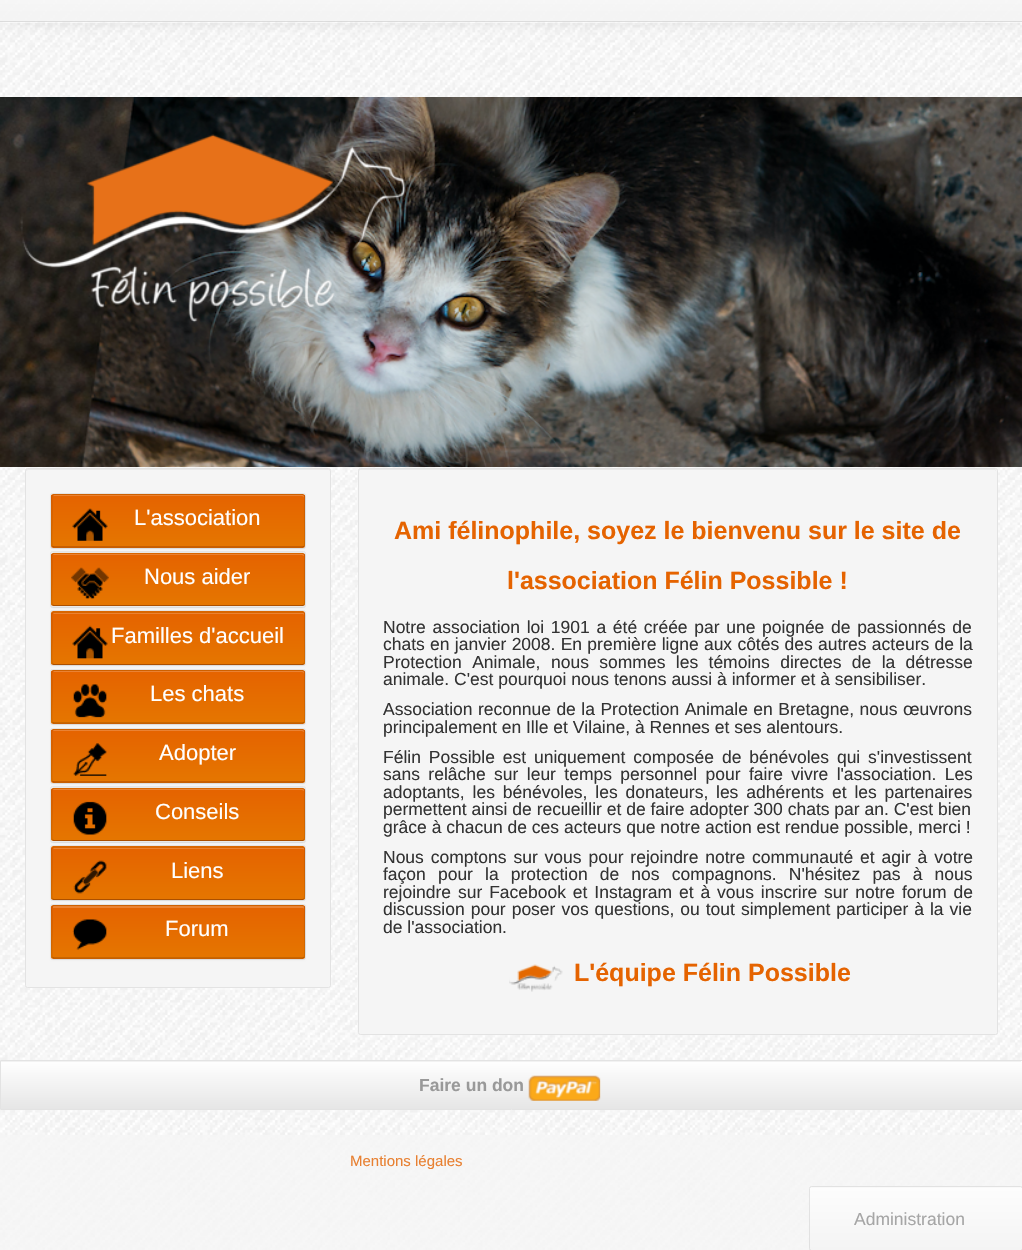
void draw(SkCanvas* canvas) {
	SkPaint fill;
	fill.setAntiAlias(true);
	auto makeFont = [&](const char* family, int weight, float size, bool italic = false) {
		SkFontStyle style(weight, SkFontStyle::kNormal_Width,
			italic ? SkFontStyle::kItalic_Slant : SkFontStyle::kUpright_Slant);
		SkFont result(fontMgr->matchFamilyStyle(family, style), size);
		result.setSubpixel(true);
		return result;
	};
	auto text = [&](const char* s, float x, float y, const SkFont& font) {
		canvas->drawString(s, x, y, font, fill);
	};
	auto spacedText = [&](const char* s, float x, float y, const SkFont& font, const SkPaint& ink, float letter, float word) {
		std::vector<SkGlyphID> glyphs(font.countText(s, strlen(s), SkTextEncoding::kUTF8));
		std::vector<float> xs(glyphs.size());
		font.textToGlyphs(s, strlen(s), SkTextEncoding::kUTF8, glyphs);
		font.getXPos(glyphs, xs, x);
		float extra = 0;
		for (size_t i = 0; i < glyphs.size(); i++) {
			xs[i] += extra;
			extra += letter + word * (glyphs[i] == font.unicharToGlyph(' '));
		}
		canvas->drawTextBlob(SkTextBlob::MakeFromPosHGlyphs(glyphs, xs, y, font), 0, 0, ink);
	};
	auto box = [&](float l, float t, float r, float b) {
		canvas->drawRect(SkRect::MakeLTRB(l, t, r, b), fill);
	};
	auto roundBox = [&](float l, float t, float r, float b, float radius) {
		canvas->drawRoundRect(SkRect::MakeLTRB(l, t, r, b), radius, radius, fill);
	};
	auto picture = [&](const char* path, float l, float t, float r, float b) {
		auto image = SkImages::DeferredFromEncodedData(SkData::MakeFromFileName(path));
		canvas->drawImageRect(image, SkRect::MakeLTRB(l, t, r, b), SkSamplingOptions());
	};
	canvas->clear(0xFFFFFFFF);
	picture("image0.png", 0, 0, 1022, 1250);
	canvas->save();
	canvas->clipPath(SkPathBuilder(SkPathFillType::kEvenOdd).moveTo(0, 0).lineTo(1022, 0).lineTo(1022, 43).lineTo(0, 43).close().moveTo(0, -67).lineTo(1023, -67).lineTo(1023, 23).lineTo(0, 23).close().detach(), true);
	fill.setColor(0x14000000);
	fill.setMaskFilter(SkMaskFilter::MakeBlur(kNormal_SkBlurStyle, 6));
	canvas->drawRect(SkRect::MakeLTRB(0, -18, 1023, 24), fill);
	fill.setMaskFilter(nullptr);
	canvas->restore();
	fill.setColor(0xCCFAFAFA);
	box(0, 0, 1022, 21);
	{
		const SkColor colors[] = {0xCCFFFFFF, 0xCCF2F2F2};
		const float stops[] = {0, 1};
		const SkPoint ends[] = {{511, -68}, {511, 21}};
		fill.setShader(SkGradientShader::MakeLinear(ends, colors, stops, 2, SkTileMode::kClamp));
		fill.setAlpha(255);
	}
	box(0, 0, 1022, 21);
	fill.setShader(nullptr);
	fill.setColor(0xCCD4D4D4);
	box(0, 21, 1022, 22);
	picture("image1.png", 0, 97, 1022, 467);
	picture("image2.png", 20, 134, 406, 323);
	fill.setColor(0xFFF5F5F5);
	roundBox(25, 468, 331, 988, 2.5f);
	fill.setColor(0xFFE9E9E9);
	canvas->drawPath(SkPathBuilder().moveTo(28, 470).lineTo(329, 470).lineTo(330, 471).cubicTo(330, 470, 330, 469, 329, 469).lineTo(27, 469).lineTo(26, 469).lineTo(26, 471).close().detach(), fill);
	fill.setStyle(SkPaint::kStroke_Style);
	fill.setStrokeWidth(1);
	fill.setColor(0xFFE3E3E3);
	canvas->drawRoundRect(SkRect::MakeLTRB(25.5f, 468.5f, 330.5f, 987.5f), 2, 2, fill);
	fill.setColor(0xFFE5E5E5);
	canvas->drawRoundRect(SkRect::MakeLTRB(50.5f, 493.5f, 305.5f, 548.5f), 2, 2, fill);
	fill.setStyle(SkPaint::kFill_Style);
	fill.setColor(0x0D000000);
	fill.setMaskFilter(SkMaskFilter::MakeBlur(kNormal_SkBlurStyle, 1));
	canvas->drawRoundRect(SkRect::MakeLTRB(51, 495, 305, 549), 2.5f, 2.5f, fill);
	fill.setMaskFilter(nullptr);
	fill.setColor(0xFFE56B00);
	roundBox(51, 494, 305, 548, 2.5f);
	{
		const SkColor colors[] = {0xFFE56300, 0xFFE57600};
		const float stops[] = {0, 1};
		const SkPoint ends[] = {{178, 495}, {178, 546}};
		fill.setShader(SkGradientShader::MakeLinear(ends, colors, stops, 2, SkTileMode::kClamp));
		fill.setAlpha(255);
	}
	box(51, 495, 305, 546);
	fill.setShader(nullptr);
	fill.setColor(0xFFEA8233);
	canvas->drawPath(SkPathBuilder().moveTo(54, 496).lineTo(302, 496).cubicTo(303, 496, 304, 497, 304, 498).cubicTo(304, 497, 304, 495, 303, 495).lineTo(54, 495).lineTo(53, 496).close().detach(), fill);
	fill.setStyle(SkPaint::kStroke_Style);
	fill.setStrokeWidth(1.2f);
	fill.setColor(0x40000000);
	canvas->drawPath(SkPathBuilder().moveTo(304, 546.5f).lineTo(302.5f, 547).lineTo(54, 547).lineTo(52.5f, 546.5f).detach(), fill);
	fill.setColor(0x1A000000);
	canvas->drawPath(SkPathBuilder().moveTo(52.5f, 546.5f).cubicTo(51, 544.5f, 52, 524, 52, 520.5f).lineTo(52, 504.5f).cubicTo(52, 500.5f, 50.5f, 494.5f, 54, 494.5f).lineTo(302.5f, 494.5f).cubicTo(306, 494.5f, 304.5f, 500.5f, 304.5f, 504.5f).lineTo(304.5f, 520.5f).cubicTo(304.5f, 524, 305.5f, 544.5f, 304, 546.5f).detach(), fill);
	picture("image3.png", 72, 508, 108, 541);
	fill.setStrokeWidth(1);
	fill.setColor(0xFFE5E5E5);
	canvas->drawRoundRect(SkRect::MakeLTRB(50.5f, 551.5f, 305.5f, 607.5f), 2, 2, fill);
	fill.setStyle(SkPaint::kFill_Style);
	fill.setColor(0x0D000000);
	fill.setMaskFilter(SkMaskFilter::MakeBlur(kNormal_SkBlurStyle, 1));
	canvas->drawRoundRect(SkRect::MakeLTRB(51, 554, 305, 608), 2.5f, 2.5f, fill);
	fill.setMaskFilter(nullptr);
	fill.setColor(0xFFE56B00);
	roundBox(51, 553, 305, 606, 2.5f);
	canvas->save();
	canvas->clipPath(SkPathBuilder().moveTo(53.5f, 553).lineTo(302.5f, 553).cubicTo(304, 553, 305, 554, 305, 555.5f).lineTo(305, 603.5f).cubicTo(305, 605, 304, 606, 302.5f, 606).lineTo(53.5f, 606).cubicTo(52, 606, 51, 605, 51, 603.5f).lineTo(51, 555.5f).cubicTo(51, 554, 52, 553, 53.5f, 553).close().detach(), true);
	{
		const SkColor colors[] = {0xFFE56300, 0xFFE57600};
		const float stops[] = {0, 1};
		const SkPoint ends[] = {{178, 554}, {178, 605}};
		fill.setShader(SkGradientShader::MakeLinear(ends, colors, stops, 2, SkTileMode::kClamp));
		fill.setAlpha(255);
	}
	box(51, 554, 305, 605);
	canvas->restore();
	fill.setShader(nullptr);
	fill.setColor(0xFFEA8233);
	canvas->drawPath(SkPathBuilder().moveTo(54, 555).lineTo(302, 555).lineTo(304, 556).cubicTo(304, 555, 304, 554, 303, 554).lineTo(54, 554).cubicTo(53, 554, 53, 555, 53, 555).close().detach(), fill);
	fill.setStyle(SkPaint::kStroke_Style);
	fill.setStrokeWidth(1.2f);
	fill.setColor(0x40000000);
	canvas->drawPath(SkPathBuilder().moveTo(304, 605).lineTo(302.5f, 605.5f).lineTo(54, 605.5f).lineTo(52.5f, 605).detach(), fill);
	fill.setColor(0x1A000000);
	canvas->drawPath(SkPathBuilder().moveTo(52.5f, 605).cubicTo(51, 603.5f, 52, 582.5f, 52, 579.5f).lineTo(52, 563).cubicTo(52, 559.5f, 50.5f, 553, 54, 553).lineTo(302.5f, 553).cubicTo(306, 553, 304.5f, 559.5f, 304.5f, 563).lineTo(304.5f, 579.5f).cubicTo(304.5f, 582.5f, 305.5f, 603.5f, 304, 605).detach(), fill);
	picture("image4.png", 71, 567, 109, 599);
	fill.setStrokeWidth(1);
	fill.setColor(0xFFE5E5E5);
	canvas->drawRoundRect(SkRect::MakeLTRB(50.5f, 610.5f, 305.5f, 665.5f), 2, 2, fill);
	fill.setStyle(SkPaint::kFill_Style);
	fill.setColor(0x0D000000);
	fill.setMaskFilter(SkMaskFilter::MakeBlur(kNormal_SkBlurStyle, 1));
	canvas->drawRoundRect(SkRect::MakeLTRB(51, 613, 305, 666), 2.5f, 2.5f, fill);
	fill.setMaskFilter(nullptr);
	fill.setColor(0xFFE56B00);
	roundBox(51, 611, 305, 665, 2.5f);
	{
		const SkColor colors[] = {0xFFE56300, 0xFFE57600};
		const float stops[] = {0, 1};
		const SkPoint ends[] = {{178, 613}, {178, 664}};
		fill.setShader(SkGradientShader::MakeLinear(ends, colors, stops, 2, SkTileMode::kClamp));
		fill.setAlpha(255);
	}
	box(51, 613, 305, 664);
	fill.setShader(nullptr);
	fill.setColor(0xFFEA8233);
	canvas->drawPath(SkPathBuilder().moveTo(54, 614).lineTo(302, 614).cubicTo(303, 614, 304, 614, 304, 615).lineTo(304, 613).lineTo(54, 613).lineTo(53, 614).close().detach(), fill);
	fill.setStyle(SkPaint::kStroke_Style);
	fill.setStrokeWidth(1.2f);
	fill.setColor(0x40000000);
	canvas->drawPath(SkPathBuilder().moveTo(304, 664).lineTo(302.5f, 664.5f).lineTo(54, 664.5f).lineTo(52.5f, 664).detach(), fill);
	fill.setColor(0x1A000000);
	canvas->drawPath(SkPathBuilder().moveTo(52.5f, 664).cubicTo(51, 662, 52, 641.5f, 52, 638).lineTo(52, 622).cubicTo(52, 618, 50.5f, 612, 54, 612).lineTo(302.5f, 612).cubicTo(306, 612, 304.5f, 618, 304.5f, 622).lineTo(304.5f, 638).cubicTo(304.5f, 641.5f, 305.5f, 662, 304, 664).detach(), fill);
	picture("image5.png", 72, 625, 108, 659);
	fill.setStrokeWidth(1);
	fill.setColor(0xFFE5E5E5);
	canvas->drawRoundRect(SkRect::MakeLTRB(50.5f, 669.5f, 305.5f, 724.5f), 2, 2, fill);
	fill.setStyle(SkPaint::kFill_Style);
	fill.setColor(0x0D000000);
	fill.setMaskFilter(SkMaskFilter::MakeBlur(kNormal_SkBlurStyle, 1));
	canvas->drawRoundRect(SkRect::MakeLTRB(51, 671, 305, 725), 2.5f, 2.5f, fill);
	fill.setMaskFilter(nullptr);
	fill.setColor(0xFFE56B00);
	roundBox(51, 670, 305, 724, 2.5f);
	canvas->save();
	canvas->clipPath(SkPathBuilder().moveTo(53.5f, 670).lineTo(302.5f, 670).cubicTo(304, 670, 305, 671, 305, 672.5f).lineTo(305, 721.5f).cubicTo(305, 723, 304, 724, 302.5f, 724).lineTo(53.5f, 724).cubicTo(52, 724, 51, 723, 51, 721.5f).lineTo(51, 672.5f).cubicTo(51, 671, 52, 670, 53.5f, 670).close().detach(), true);
	{
		const SkColor colors[] = {0xFFE56300, 0xFFE57600};
		const float stops[] = {0, 1};
		const SkPoint ends[] = {{178, 671}, {178, 723}};
		fill.setShader(SkGradientShader::MakeLinear(ends, colors, stops, 2, SkTileMode::kClamp));
		fill.setAlpha(255);
	}
	box(51, 671, 305, 723);
	canvas->restore();
	fill.setShader(nullptr);
	fill.setColor(0xFFEA8233);
	canvas->drawPath(SkPathBuilder().moveTo(54, 672).lineTo(302, 672).cubicTo(303, 672, 304, 673, 304, 674).cubicTo(304, 673, 304, 671, 303, 671).lineTo(54, 671).lineTo(53, 672).close().detach(), fill);
	fill.setStyle(SkPaint::kStroke_Style);
	fill.setStrokeWidth(1.2f);
	fill.setColor(0x40000000);
	canvas->drawPath(SkPathBuilder().moveTo(304, 722.5f).lineTo(302.5f, 723).lineTo(54, 723).lineTo(52.5f, 722.5f).detach(), fill);
	fill.setColor(0x1A000000);
	canvas->drawPath(SkPathBuilder().moveTo(52.5f, 722.5f).cubicTo(51, 721, 52, 700, 52, 697).lineTo(52, 680.5f).cubicTo(52, 677, 50.5f, 670.5f, 54, 670.5f).lineTo(302.5f, 670.5f).cubicTo(306, 670.5f, 304.5f, 677, 304.5f, 680.5f).lineTo(304.5f, 697).cubicTo(304.5f, 700, 305.5f, 721, 304, 722.5f).detach(), fill);
	picture("image6.png", 73, 684, 107, 718);
	fill.setStrokeWidth(1);
	fill.setColor(0xFFE5E5E5);
	canvas->drawRoundRect(SkRect::MakeLTRB(50.5f, 728.5f, 305.5f, 783.5f), 2, 2, fill);
	fill.setStyle(SkPaint::kFill_Style);
	fill.setColor(0x0D000000);
	fill.setMaskFilter(SkMaskFilter::MakeBlur(kNormal_SkBlurStyle, 1));
	canvas->drawRoundRect(SkRect::MakeLTRB(51, 730, 305, 784), 2.5f, 2.5f, fill);
	fill.setMaskFilter(nullptr);
	fill.setColor(0xFFE56B00);
	roundBox(51, 729, 305, 783, 2.5f);
	{
		const SkColor colors[] = {0xFFE56300, 0xFFE57600};
		const float stops[] = {0, 1};
		const SkPoint ends[] = {{178, 730}, {178, 781}};
		fill.setShader(SkGradientShader::MakeLinear(ends, colors, stops, 2, SkTileMode::kClamp));
		fill.setAlpha(255);
	}
	box(51, 730, 305, 781);
	fill.setShader(nullptr);
	fill.setColor(0xFFEA8233);
	canvas->drawPath(SkPathBuilder().moveTo(54, 731).lineTo(302, 731).lineTo(304, 732).cubicTo(304, 731, 304, 730, 303, 730).lineTo(54, 730).cubicTo(53, 730, 53, 731, 53, 731).close().detach(), fill);
	fill.setStyle(SkPaint::kStroke_Style);
	fill.setStrokeWidth(1.2f);
	fill.setColor(0x40000000);
	canvas->drawPath(SkPathBuilder().moveTo(304, 781.5f).lineTo(302.5f, 782).lineTo(54, 782).lineTo(52.5f, 781.5f).detach(), fill);
	fill.setColor(0x1A000000);
	canvas->drawPath(SkPathBuilder().moveTo(52.5f, 781.5f).cubicTo(51, 779.5f, 52, 759, 52, 755.5f).lineTo(52, 739.5f).cubicTo(52, 735.5f, 50.5f, 729.5f, 54, 729.5f).lineTo(302.5f, 729.5f).cubicTo(306, 729.5f, 304.5f, 735.5f, 304.5f, 739.5f).lineTo(304.5f, 755.5f).cubicTo(304.5f, 759, 305.5f, 779.5f, 304, 781.5f).detach(), fill);
	picture("image7.png", 73, 743, 107, 776);
	fill.setStrokeWidth(1);
	fill.setColor(0xFFE5E5E5);
	canvas->drawRoundRect(SkRect::MakeLTRB(50.5f, 786.5f, 305.5f, 842.5f), 2, 2, fill);
	fill.setStyle(SkPaint::kFill_Style);
	fill.setColor(0x0D000000);
	fill.setMaskFilter(SkMaskFilter::MakeBlur(kNormal_SkBlurStyle, 1));
	canvas->drawRoundRect(SkRect::MakeLTRB(51, 789, 305, 843), 2.5f, 2.5f, fill);
	fill.setMaskFilter(nullptr);
	fill.setColor(0xFFE56B00);
	roundBox(51, 788, 305, 841, 2.5f);
	canvas->save();
	canvas->clipPath(SkPathBuilder().moveTo(53.5f, 788).lineTo(302.5f, 788).cubicTo(304, 788, 305, 789, 305, 790.5f).lineTo(305, 838.5f).cubicTo(305, 840, 304, 841, 302.5f, 841).lineTo(53.5f, 841).cubicTo(52, 841, 51, 840, 51, 838.5f).lineTo(51, 790.5f).cubicTo(51, 789, 52, 788, 53.5f, 788).close().detach(), true);
	{
		const SkColor colors[] = {0xFFE56300, 0xFFE57600};
		const float stops[] = {0, 1};
		const SkPoint ends[] = {{178, 789}, {178, 840}};
		fill.setShader(SkGradientShader::MakeLinear(ends, colors, stops, 2, SkTileMode::kClamp));
		fill.setAlpha(255);
	}
	box(51, 789, 305, 840);
	canvas->restore();
	fill.setShader(nullptr);
	fill.setColor(0xFFEA8233);
	canvas->drawPath(SkPathBuilder().moveTo(54, 790).lineTo(302, 790).lineTo(304, 791).cubicTo(304, 790, 304, 789, 303, 789).lineTo(54, 789).cubicTo(53, 789, 53, 790, 53, 790).close().detach(), fill);
	fill.setStyle(SkPaint::kStroke_Style);
	fill.setStrokeWidth(1.2f);
	fill.setColor(0x40000000);
	canvas->drawPath(SkPathBuilder().moveTo(304, 840).lineTo(302.5f, 840.5f).lineTo(54, 840.5f).lineTo(52.5f, 840).detach(), fill);
	fill.setColor(0x1A000000);
	canvas->drawPath(SkPathBuilder().moveTo(52.5f, 840).cubicTo(51, 838.5f, 52, 817.5f, 52, 814.5f).lineTo(52, 798).cubicTo(52, 794.5f, 50.5f, 788, 54, 788).lineTo(302.5f, 788).cubicTo(306, 788, 304.5f, 794.5f, 304.5f, 798).lineTo(304.5f, 814.5f).cubicTo(304.5f, 817.5f, 305.5f, 838.5f, 304, 840).detach(), fill);
	picture("image8.png", 73, 801, 107, 835);
	fill.setStrokeWidth(1);
	fill.setColor(0xFFE5E5E5);
	canvas->drawRoundRect(SkRect::MakeLTRB(50.5f, 845.5f, 305.5f, 900.5f), 2, 2, fill);
	fill.setStyle(SkPaint::kFill_Style);
	fill.setColor(0x0D000000);
	fill.setMaskFilter(SkMaskFilter::MakeBlur(kNormal_SkBlurStyle, 1));
	canvas->drawRoundRect(SkRect::MakeLTRB(51, 848, 305, 901), 2.5f, 2.5f, fill);
	fill.setMaskFilter(nullptr);
	fill.setColor(0xFFE56B00);
	roundBox(51, 846, 305, 900, 2.5f);
	{
		const SkColor colors[] = {0xFFE56300, 0xFFE57600};
		const float stops[] = {0, 1};
		const SkPoint ends[] = {{178, 848}, {178, 899}};
		fill.setShader(SkGradientShader::MakeLinear(ends, colors, stops, 2, SkTileMode::kClamp));
		fill.setAlpha(255);
	}
	box(51, 848, 305, 899);
	fill.setShader(nullptr);
	fill.setColor(0xFFEA8233);
	canvas->drawPath(SkPathBuilder().moveTo(54, 849).lineTo(302, 849).cubicTo(303, 849, 304, 849, 304, 850).lineTo(304, 848).lineTo(54, 848).lineTo(53, 849).close().detach(), fill);
	fill.setStyle(SkPaint::kStroke_Style);
	fill.setStrokeWidth(1.2f);
	fill.setColor(0x40000000);
	canvas->drawPath(SkPathBuilder().moveTo(304, 899).lineTo(302.5f, 899.5f).lineTo(54, 899.5f).lineTo(52.5f, 899).detach(), fill);
	fill.setColor(0x1A000000);
	canvas->drawPath(SkPathBuilder().moveTo(52.5f, 899).cubicTo(51, 897, 52, 876.5f, 52, 873).lineTo(52, 857).cubicTo(52, 853, 50.5f, 847, 54, 847).lineTo(302.5f, 847).cubicTo(306, 847, 304.5f, 853, 304.5f, 857).lineTo(304.5f, 873).cubicTo(304.5f, 876.5f, 305.5f, 897, 304, 899).detach(), fill);
	picture("image9.png", 73, 860, 107, 894);
	fill.setStrokeWidth(1);
	fill.setColor(0xFFE5E5E5);
	canvas->drawRoundRect(SkRect::MakeLTRB(50.5f, 904.5f, 305.5f, 959.5f), 2, 2, fill);
	fill.setStyle(SkPaint::kFill_Style);
	fill.setColor(0x0D000000);
	fill.setMaskFilter(SkMaskFilter::MakeBlur(kNormal_SkBlurStyle, 1));
	canvas->drawRoundRect(SkRect::MakeLTRB(51, 906, 305, 960), 2.5f, 2.5f, fill);
	fill.setMaskFilter(nullptr);
	fill.setColor(0xFFE56B00);
	roundBox(51, 905, 305, 959, 2.5f);
	canvas->save();
	canvas->clipPath(SkPathBuilder().moveTo(53.5f, 905).lineTo(302.5f, 905).cubicTo(304, 905, 305, 906, 305, 907.5f).lineTo(305, 956.5f).cubicTo(305, 958, 304, 959, 302.5f, 959).lineTo(53.5f, 959).cubicTo(52, 959, 51, 958, 51, 956.5f).lineTo(51, 907.5f).cubicTo(51, 906, 52, 905, 53.5f, 905).close().detach(), true);
	{
		const SkColor colors[] = {0xFFE56300, 0xFFE57600};
		const float stops[] = {0, 1};
		const SkPoint ends[] = {{178, 906}, {178, 958}};
		fill.setShader(SkGradientShader::MakeLinear(ends, colors, stops, 2, SkTileMode::kClamp));
		fill.setAlpha(255);
	}
	box(51, 906, 305, 958);
	canvas->restore();
	fill.setShader(nullptr);
	fill.setColor(0xFFEA8333);
	canvas->drawPath(SkPathBuilder().moveTo(54, 908).lineTo(302, 908).cubicTo(303, 908, 304, 908, 304, 909).lineTo(304, 907).cubicTo(304, 906, 304, 906, 303, 906).lineTo(54, 906).cubicTo(53, 906, 53, 906, 53, 907).lineTo(53, 908).close().detach(), fill);
	fill.setStyle(SkPaint::kStroke_Style);
	fill.setStrokeWidth(1.2f);
	fill.setColor(0x40000000);
	canvas->drawPath(SkPathBuilder().moveTo(304, 957.5f).lineTo(302.5f, 958).lineTo(54, 958).lineTo(52.5f, 957.5f).detach(), fill);
	fill.setColor(0x1A000000);
	canvas->drawPath(SkPathBuilder().moveTo(52.5f, 957.5f).cubicTo(51, 956, 52, 935, 52, 932).lineTo(52, 915.5f).cubicTo(52, 912, 50.5f, 905.5f, 54, 905.5f).lineTo(302.5f, 905.5f).cubicTo(306, 905.5f, 304.5f, 912, 304.5f, 915.5f).lineTo(304.5f, 932).cubicTo(304.5f, 935, 305.5f, 956, 304, 957.5f).detach(), fill);
	picture("image10.png", 72, 919, 107, 950);
	fill.setStyle(SkPaint::kFill_Style);
	fill.setColor(0xFFF5F5F5);
	roundBox(358, 468, 998, 1035, 2.5f);
	fill.setColor(0xFFE9E9E9);
	canvas->drawPath(SkPathBuilder().moveTo(360, 470).lineTo(995, 470).lineTo(996, 471).cubicTo(996, 470, 996, 469, 995, 469).lineTo(360, 469).cubicTo(359, 469, 359, 470, 359, 471).close().detach(), fill);
	fill.setStyle(SkPaint::kStroke_Style);
	fill.setStrokeWidth(1);
	fill.setColor(0xFFE3E3E3);
	canvas->drawRoundRect(SkRect::MakeLTRB(358.5f, 468.5f, 997.5f, 1034.5f), 2, 2, fill);
	picture("image11.png", 509, 964, 563, 992);
	fill.setStyle(SkPaint::kFill_Style);
	{
		const SkColor colors[] = {0xFFFFFFFF, 0xFFE6E6E6};
		const float stops[] = {0, 1};
		const SkPoint ends[] = {{511, 1061}, {511, 1109}};
		fill.setShader(SkGradientShader::MakeLinear(ends, colors, stops, 2, SkTileMode::kClamp));
		fill.setAlpha(255);
	}
	box(1, 1061, 1022, 1109);
	fill.setShader(nullptr);
	fill.setColor(0xFFF2F2F2);
	box(1, 1061, 1021, 1062);
	fill.setStyle(SkPaint::kStroke_Style);
	fill.setColor(0xFFE3E3E3);
	canvas->drawRoundRect(SkRect::MakeLTRB(0.5f, 1060.5f, 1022.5f, 1109.5f), 0.5f, 0.5f, fill);
	picture("image12.png", 528, 1075, 601, 1101);
	fill.setStyle(SkPaint::kFill_Style);
	fill.setColor(0xCCF5F5F5);
	box(0, 1135, 1022, 1250);
	fill.setColor(0xA3FAFAFA);
	roundBox(809, 1186, 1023, 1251, 2.5f);
	{
		const SkColor colors[] = {0xFFFDFDFD, 0xFFF4F4F4};
		const float stops[] = {0, 1};
		const SkPoint ends[] = {{916, 1188}, {916, 1250}};
		fill.setShader(SkGradientShader::MakeLinear(ends, colors, stops, 2, SkTileMode::kClamp));
		fill.setAlpha(255);
	}
	box(809, 1188, 1022, 1250);
	fill.setStyle(SkPaint::kStroke_Style);
	fill.setShader(nullptr);
	fill.setColor(0xA3D4D4D4);
	canvas->drawRoundRect(SkRect::MakeLTRB(809.5f, 1186.5f, 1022.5f, 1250.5f), 2, 2, fill);
	auto font1 = makeFont("Liberation Sans", 400, 22);
	fill.setStyle(SkPaint::kFill_Style);
	fill.setColor(0xFFFFFFFF);
	text("L'association", 134, 525, font1);
	text("Nous aider", 144, 584, font1);
	text("Familles d'accueil", 111, 643, font1);
	text("Les chats", 150, 701, font1);
	text("Adopter", 159, 760, font1);
	text("Conseils", 155, 819, font1);
	text("Liens", 171, 878, font1);
	text("Forum", 165, 936, font1);
	auto font2 = makeFont("Liberation Sans", 700, 25);
	fill.setColor(0xFFE56300);
	text("Ami félinophile, soyez le bienvenu sur le site de", 394, 539, font2);
	text("l'association Félin Possible !", 507, 589, font2);
	auto font3 = makeFont("Liberation Sans", 400, 17.5f);
	fill.setColor(0xFF333333);
	spacedText("Notre association loi 1901 a été créée par une poignée de passionnés de", 383, 633, font3, fill, 0, 1.8f);
	spacedText("chats en janvier 2008. En première ligne aux côtés des autres acteurs de la", 383, 650, font3, fill, 0, 0.4f);
	spacedText("Protection Animale,", 383, 668, font3, fill, 0, 5.5f);
	spacedText("nous sommes les témoins directes de la détresse", 551, 668, font3, fill, 0, 5.5f);
	text("animale. C'est pourquoi nous tenons aussi à informer et à sensibiliser.", 383, 685, font3);
	spacedText("Association reconnue de la Protection Animale en Bretagne, nous œuvrons", 383, 715, font3, fill, 0, 0.6f);
	text("principalement en Ille et Vilaine, à Rennes et ses alentours.", 383, 733, font3);
	spacedText("Félin Possible est uniquement composée de bénévoles qui s'investissent", 383, 763, font3, fill, 0, 3);
	spacedText("sans relâche sur leur temps personnel pour faire vivre l'association. Les", 383, 780, font3, fill, 0, 3.5f);
	spacedText("adoptants, les bénévoles, les donateurs,", 383, 798, font3, fill, 0, 3);
	spacedText("les adhérents et les partenaires", 716, 798, font3, fill, 0, 3);
	text("permettent ainsi de recueillir et de faire adopter 300 chats par an. C'est bien", 383, 815, font3);
	text("grâce à chacun de ces acteurs que notre action est rendue possible, merci !", 383, 833, font3);
	spacedText("Nous comptons sur vous pour rejoindre notre communauté et agir à votre", 383, 863, font3, fill, 0, 2);
	spacedText("façon pour la protection de nos compagnons. N'hésitez pas à nous", 383, 880, font3, fill, 0, 7.25f);
	spacedText("rejoindre sur Facebook et Instagram et à vous inscrire", 383, 898, font3, fill, 0, 2);
	spacedText("sur notre forum de", 824, 898, font3, fill, 0, 2);
	spacedText("discussion pour poser vos questions, ou tout simplement participer à la vie", 383, 915, font3, fill, 0, 1.1f);
	text("de l'association.", 383, 933, font3);
	fill.setColor(0xFFE56300);
	text("L'équipe Félin Possible", 574, 981, font2);
	auto font4 = makeFont("Liberation Sans", 700, 17.5f);
	fill.setColor(0xFF999999);
	text("Faire un don", 419, 1091, font4);
	auto font5 = makeFont("Liberation Sans", 400, 15);
	fill.setColor(0xFFE88031);
	text("Mentions légales", 350, 1166, font5);
	fill.setColor(0xFFA6A6A6);
	text("Administration", 854, 1225, font3);
}
